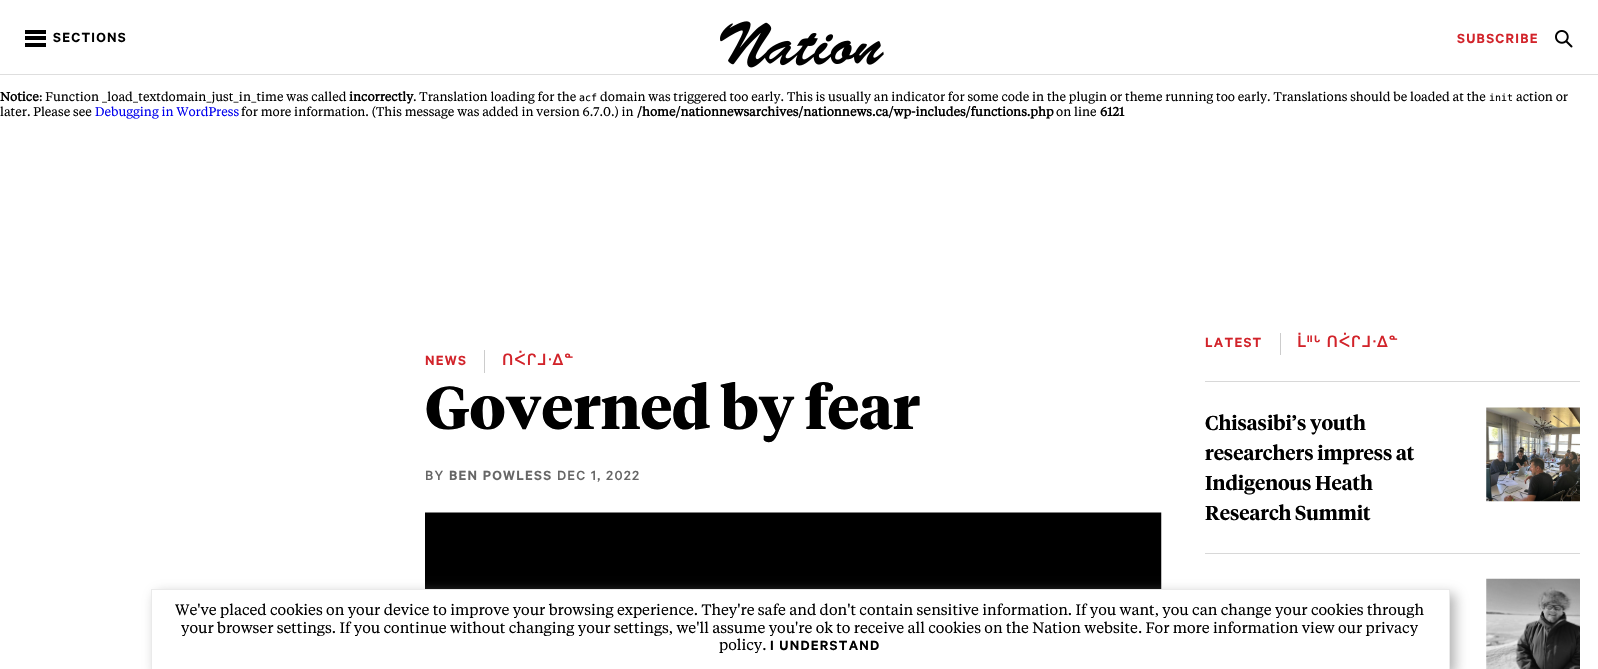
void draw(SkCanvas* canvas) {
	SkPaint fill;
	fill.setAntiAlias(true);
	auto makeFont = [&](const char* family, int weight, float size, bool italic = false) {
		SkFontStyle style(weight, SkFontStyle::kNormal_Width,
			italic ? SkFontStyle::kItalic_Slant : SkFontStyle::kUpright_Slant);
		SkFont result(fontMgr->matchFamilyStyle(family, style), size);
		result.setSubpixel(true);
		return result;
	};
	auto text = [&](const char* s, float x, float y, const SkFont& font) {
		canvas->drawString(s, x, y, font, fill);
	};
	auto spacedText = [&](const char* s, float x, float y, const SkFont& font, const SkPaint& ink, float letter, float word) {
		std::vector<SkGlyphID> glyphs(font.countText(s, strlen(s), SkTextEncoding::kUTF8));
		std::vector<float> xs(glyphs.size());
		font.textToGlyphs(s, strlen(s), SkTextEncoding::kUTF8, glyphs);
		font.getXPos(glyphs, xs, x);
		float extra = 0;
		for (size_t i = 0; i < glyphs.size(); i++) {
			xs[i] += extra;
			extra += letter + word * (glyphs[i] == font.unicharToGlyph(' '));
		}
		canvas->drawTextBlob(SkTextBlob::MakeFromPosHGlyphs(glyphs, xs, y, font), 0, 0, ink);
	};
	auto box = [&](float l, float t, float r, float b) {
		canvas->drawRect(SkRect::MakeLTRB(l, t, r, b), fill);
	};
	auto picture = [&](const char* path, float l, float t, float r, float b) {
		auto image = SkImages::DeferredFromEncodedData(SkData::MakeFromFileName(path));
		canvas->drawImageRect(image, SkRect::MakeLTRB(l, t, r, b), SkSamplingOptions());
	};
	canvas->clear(0xFFFFFFFF);
	fill.setColor(0xFFDEDEDE);
	box(0, 74, 1598, 75);
	fill.setColor(0xFF000000);
	box(25, 30, 46, 34);
	box(25, 36, 46, 40);
	box(25, 43, 46, 47);
	picture("image0.png", 720, 21, 884, 68);
	picture("image1.png", 1555, 30, 1573, 48);
	fill.setColor(0xFFCCCCCC);
	box(484, 350, 485, 373);
	picture("image2.png", 425, 512, 1162, 589);
	box(1280, 333, 1281, 355);
	fill.setColor(0xFFD8D8D8);
	box(1205, 381, 1580, 382);
	picture("image3.png", 1486, 407, 1580, 502);
	box(1205, 553, 1580, 554);
	picture("image4.png", 1486, 578, 1580, 669);
	fill.setColor(0xBF969696);
	fill.setMaskFilter(SkMaskFilter::MakeBlur(kNormal_SkBlurStyle, 6));
	canvas->drawRect(SkRect::MakeLTRB(156, 594, 1455, 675), fill);
	fill.setMaskFilter(nullptr);
	fill.setColor(0xFFFFFFFF);
	canvas->drawRect(SkRect::MakeLTRB(151.5f, 589.5f, 1449.5f, 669.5f), fill);
	fill.setStyle(SkPaint::kStroke_Style);
	fill.setStrokeWidth(1);
	fill.setColor(0xFFEAEAEA);
	canvas->drawRect(SkRect::MakeLTRB(151.5f, 589.5f, 1449.5f, 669.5f), fill);
	auto font1 = makeFont("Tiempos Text", 700, 12.5f);
	fill.setStyle(SkPaint::kFill_Style);
	fill.setColor(0xFF000000);
	text("Notice", 0, 101, font1);
	auto font2 = makeFont("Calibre", 600, 15);
	spacedText("SECTIONS", 53, 42, font2, fill, 1.25f, 0);
	fill.setColor(0xFFD2232A);
	spacedText("SUBSCRIBE", 1457, 43, font2, fill, 1.25f, 0);
	spacedText("NEWS", 425, 365, font2, fill, 1.25f, 0);
	auto font3 = makeFont("DejaVu Sans", 700, 15);
	spacedText("ᑎᐹᒋᒧᐧᐃᓐ", 502, 365, font3, fill, 1.25f, 0);
	auto font4 = makeFont("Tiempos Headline", 700, 60);
	fill.setColor(0xFF000000);
	text("Governed by fear", 425, 429, font4);
	auto font5 = makeFont("Calibre", 500, 15);
	fill.setColor(0xFF666666);
	spacedText("BY", 425, 480, font5, fill, 1.25f, 0);
	spacedText("BEN POWLESS", 449, 480, font2, fill, 1.25f, 0);
	spacedText("DEC 1, 2022", 557, 480, font5, fill, 1.25f, 0);
	fill.setColor(0xFFD2232A);
	spacedText("LATEST", 1205, 347, font2, fill, 1.25f, 0);
	spacedText("ᒫᐦᒡ ᑎᐹᒋᒧᐧᐃᓐ", 1297, 347, font3, fill, 1.25f, -1);
	auto font6 = makeFont("Tiempos Headline", 600, 20);
	fill.setColor(0xFF000000);
	text("Chisasibi’s youth", 1205, 430, font6);
	text("researchers impress at", 1205, 460, font6);
	text("Indigenous Heath", 1205, 490, font6);
	text("Research Summit", 1205, 520, font6);
	auto font7 = makeFont("Tiempos Text", 400, 15);
	text("We've placed cookies on your device to improve your browsing experience. They're safe and don't contain sensitive information. If you want, you can change your cookies through", 175, 615, font7);
	text("your browser settings. If you continue without changing your settings, we'll assume you're ok to receive all cookies on the Nation website. For more information view our privacy", 181, 633, font7);
	text("policy.", 719, 650, font7);
	spacedText("I UNDERSTAND", 770, 650, font2, fill, 1.25f, 0);
	auto font8 = makeFont("Tiempos Text", 400, 12.5f);
	text(": Function _load_textdomain_just_in_time was called", 39, 101, font8);
	text("incorrectly", 349, 101, font1);
	text(". Translation loading for the", 413, 101, font8);
	auto font9 = makeFont("DejaVu Sans Mono", 400, 10);
	text("acf", 579, 101, font9);
	text("domain was triggered too early. This is usually an indicator for some code in the plugin or theme running too early. Translations should be loaded at the", 600, 101, font8);
	text("init", 1489, 101, font9);
	text("action or", 1516, 101, font8);
	text("later. Please see", 0, 116, font8);
	fill.setColor(0xFF0000EE);
	text("Debugging in WordPress", 95, 116, font8);
	fill.setColor(0xFF000000);
	text("for more information. (This message was added in version 6.7.0.) in", 241, 116, font8);
	text("/home/nationnewsarchives/nationnews.ca/wp-includes/functions.php", 637, 116, font1);
	text("on line", 1056, 116, font8);
	text("6121", 1100, 116, font1);
}
